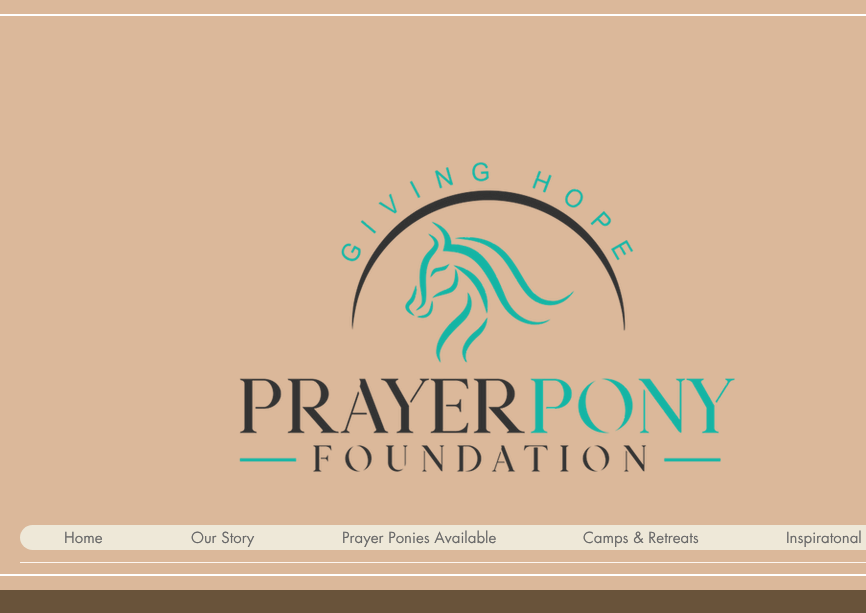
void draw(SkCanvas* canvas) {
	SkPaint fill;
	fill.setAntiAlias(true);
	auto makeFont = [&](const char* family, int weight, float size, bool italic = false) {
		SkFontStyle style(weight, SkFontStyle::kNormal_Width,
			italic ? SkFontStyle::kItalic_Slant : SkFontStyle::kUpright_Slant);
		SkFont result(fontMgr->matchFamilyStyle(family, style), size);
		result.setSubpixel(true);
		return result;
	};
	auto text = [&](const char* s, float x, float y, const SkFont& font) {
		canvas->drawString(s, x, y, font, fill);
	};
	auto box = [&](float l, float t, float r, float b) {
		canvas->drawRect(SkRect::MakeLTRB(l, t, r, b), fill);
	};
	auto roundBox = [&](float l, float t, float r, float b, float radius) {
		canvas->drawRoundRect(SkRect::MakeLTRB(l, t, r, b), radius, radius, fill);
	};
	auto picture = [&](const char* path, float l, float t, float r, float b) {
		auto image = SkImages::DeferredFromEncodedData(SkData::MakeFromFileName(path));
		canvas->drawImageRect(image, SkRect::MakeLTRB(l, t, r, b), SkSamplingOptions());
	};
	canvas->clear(0xFFDBB89A);
	fill.setColor(0xFFFFFFFF);
	box(0, 14, 866, 16);
	box(0, 574, 866, 576);
	picture("image0.png", 239, 162, 735, 472);
	fill.setColor(0xFFEEE8D8);
	roundBox(20, 525, 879, 550, 12.5f);
	fill.setColor(0xFFFDF6F0);
	box(20, 562, 866, 563);
	fill.setColor(0xFF69533A);
	box(0, 590, 866, 613);
	auto font1 = makeFont("futura", 400, 15);
	fill.setColor(0xFF696969);
	text("Home", 64, 543, font1);
	text("Our Story", 191, 543, font1);
	text("Prayer Ponies Available", 342, 543, font1);
	text("Camps & Retreats", 583, 543, font1);
	text("Inspiratonal", 786, 543, font1);
}
